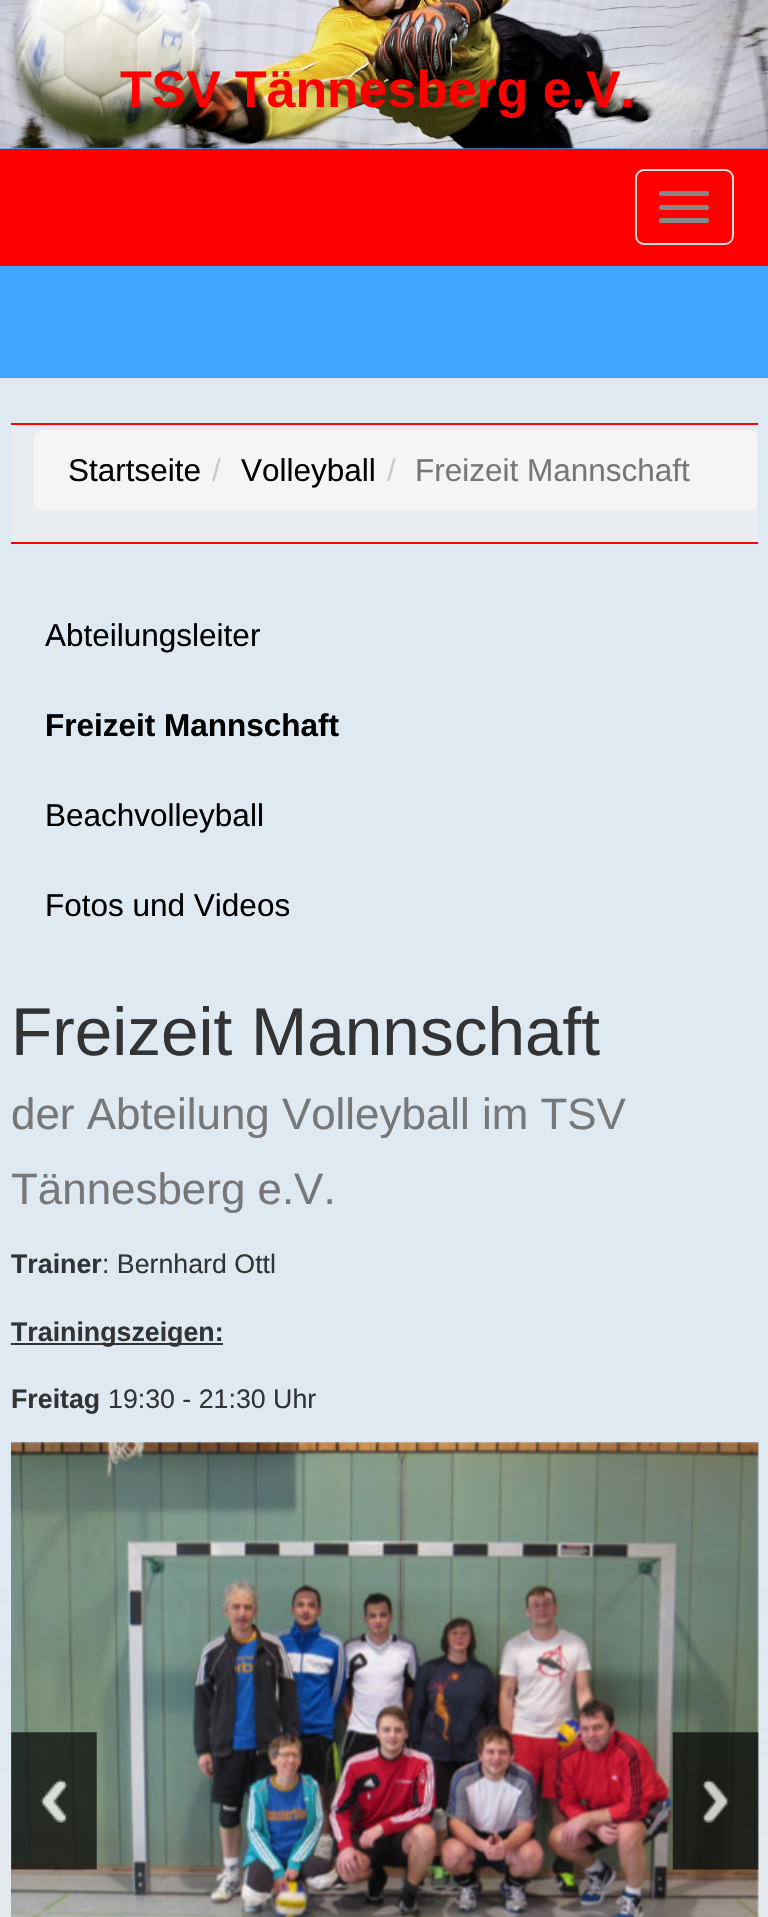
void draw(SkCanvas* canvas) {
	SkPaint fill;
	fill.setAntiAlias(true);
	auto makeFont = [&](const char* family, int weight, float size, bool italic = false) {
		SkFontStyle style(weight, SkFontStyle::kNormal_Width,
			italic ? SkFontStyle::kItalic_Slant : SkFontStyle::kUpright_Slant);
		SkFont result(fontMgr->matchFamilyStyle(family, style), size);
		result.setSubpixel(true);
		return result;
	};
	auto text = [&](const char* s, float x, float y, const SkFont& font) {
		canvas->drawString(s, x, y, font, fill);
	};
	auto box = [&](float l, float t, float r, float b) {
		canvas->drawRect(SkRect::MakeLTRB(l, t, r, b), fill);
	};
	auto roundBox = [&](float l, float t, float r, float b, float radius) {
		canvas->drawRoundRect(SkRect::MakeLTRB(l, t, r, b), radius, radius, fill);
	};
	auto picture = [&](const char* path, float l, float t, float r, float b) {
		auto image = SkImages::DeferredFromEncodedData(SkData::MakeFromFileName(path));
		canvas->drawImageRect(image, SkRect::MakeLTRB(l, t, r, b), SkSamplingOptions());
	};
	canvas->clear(0xFF3FA5FF);
	fill.setColor(0xFFDEE9F2);
	box(0, 378, 768, 1917);
	picture("image0.png", 0, 1587, 768, 1917);
	picture("image1.png", 0, 0, 768, 149);
	fill.setColor(0xFFFF0000);
	box(0, 149, 768, 266);
	fill.setStyle(SkPaint::kStroke_Style);
	fill.setStrokeWidth(2);
	fill.setColor(0xFFDDDDDD);
	canvas->drawRoundRect(SkRect::MakeLTRB(636, 170, 733, 244), 8, 8, fill);
	fill.setStyle(SkPaint::kFill_Style);
	fill.setColor(0xFF888888);
	roundBox(659, 191, 709, 196, 2.5f);
	roundBox(659, 205, 709, 210, 2.5f);
	roundBox(659, 218, 709, 223, 2.5f);
	fill.setColor(0xFFE9EDF1);
	box(11, 425, 758, 545);
	fill.setColor(0xFFFF0000);
	box(11, 423, 758, 425);
	box(11, 542, 758, 544);
	fill.setColor(0xFFF5F5F5);
	roundBox(34, 430, 758, 511, 9);
	fill.setColor(0xFF333333);
	box(11, 1343, 223, 1345);
	picture("image2.png", 11, 1442, 759, 1917);
	picture("image3.png", 11, 1732, 97, 1870);
	picture("image4.png", 672, 1732, 759, 1870);
	auto font1 = makeFont("Liberation Sans", 700, 51.75f);
	fill.setColor(0xFFFF0000);
	text("TSV Tännesberg e.V.", 120, 107, font1);
	auto font2 = makeFont("Liberation Sans", 400, 31.5f);
	fill.setColor(0xFF000000);
	text("Startseite", 68, 481, font2);
	fill.setColor(0xFFCCCCCC);
	text("/", 212, 481, font2);
	fill.setColor(0xFF000000);
	text("Volleyball", 241, 481, font2);
	fill.setColor(0xFFCCCCCC);
	text("/", 387, 481, font2);
	fill.setColor(0xFF777777);
	text("Freizeit Mannschaft", 415, 481, font2);
	fill.setColor(0xFF000000);
	text("Abteilungsleiter", 45, 646, font2);
	auto font3 = makeFont("Liberation Sans", 700, 31.5f);
	text("Freizeit Mannschaft", 45, 736, font3);
	text("Beachvolleyball", 45, 826, font2);
	text("Fotos und Videos", 45, 916, font2);
	auto font4 = makeFont("Liberation Sans", 400, 67.5f);
	fill.setColor(0xFF333333);
	text("Freizeit Mannschaft", 11, 1055, font4);
	auto font5 = makeFont("Liberation Sans", 400, 43.9f);
	fill.setColor(0xFF777777);
	text("der Abteilung Volleyball im TSV", 11, 1129, font5);
	text("Tännesberg e.V.", 11, 1204, font5);
	auto font6 = makeFont("Liberation Sans", 700, 26.75f);
	fill.setColor(0xFF333333);
	text("Trainer", 11, 1273, font6);
	auto font7 = makeFont("Liberation Sans", 400, 26.75f);
	text(": Bernhard Ottl", 102, 1273, font7);
	text("Trainingszeigen:", 11, 1341, font6);
	text("Freitag", 11, 1408, font6);
	text("19:30 - 21:30 Uhr", 108, 1408, font7);
}
